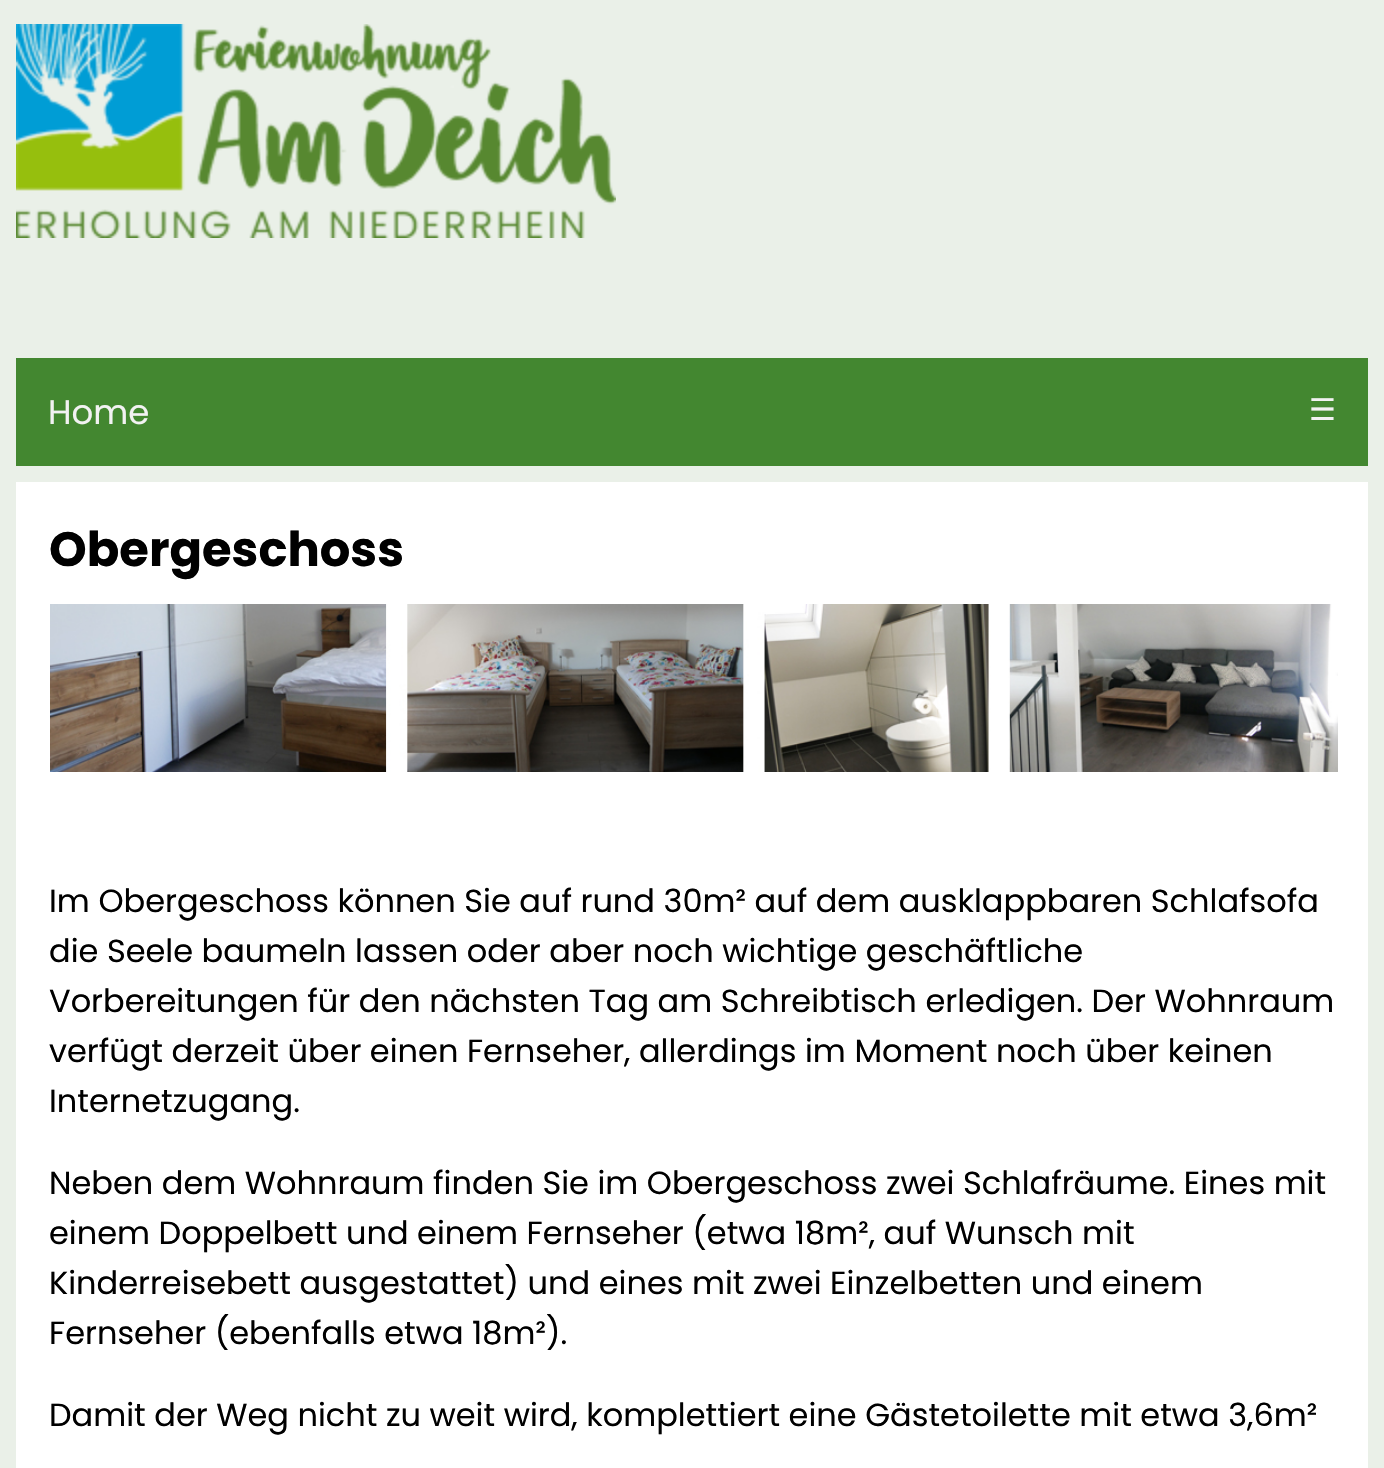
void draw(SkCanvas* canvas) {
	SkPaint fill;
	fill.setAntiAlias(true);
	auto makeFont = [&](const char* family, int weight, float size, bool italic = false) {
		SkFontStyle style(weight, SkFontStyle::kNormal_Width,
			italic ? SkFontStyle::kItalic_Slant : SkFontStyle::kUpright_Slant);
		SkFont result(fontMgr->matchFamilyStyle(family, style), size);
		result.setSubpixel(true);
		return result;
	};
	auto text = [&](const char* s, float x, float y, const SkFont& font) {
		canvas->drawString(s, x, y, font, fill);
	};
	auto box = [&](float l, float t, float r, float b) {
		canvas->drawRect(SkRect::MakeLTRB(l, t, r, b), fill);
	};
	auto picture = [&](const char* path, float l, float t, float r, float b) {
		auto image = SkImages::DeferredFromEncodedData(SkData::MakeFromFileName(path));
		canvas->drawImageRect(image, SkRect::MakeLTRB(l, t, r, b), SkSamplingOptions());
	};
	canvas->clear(0xFFEAF0E8);
	picture("image0.png", 16, 24, 616, 238);
	fill.setColor(0xFF438730);
	box(16, 358, 1368, 466);
	fill.setColor(0xFFFFFFFF);
	box(16, 482, 1368, 1468);
	picture("image1.png", 50, 604, 1338, 772);
	auto font1 = makeFont("Poppins", 400, 34);
	fill.setColor(0xFFF2F2F2);
	text("Home", 48, 424, font1);
	auto font2 = makeFont("DejaVu Sans", 400, 30);
	text("☰", 1309, 420, font2);
	auto font3 = makeFont("Poppins", 700, 48);
	fill.setColor(0xFF000000);
	text("Obergeschoss", 49, 566, font3);
	auto font4 = makeFont("Poppins", 400, 32);
	text("Im Obergeschoss können Sie auf rund 30m² auf dem ausklappbaren Schlafsofa", 49, 912, font4);
	text("die Seele baumeln lassen oder aber noch wichtige geschäftliche", 49, 962, font4);
	text("Vorbereitungen für den nächsten Tag am Schreibtisch erledigen. Der Wohnraum", 49, 1012, font4);
	text("verfügt derzeit über einen Fernseher, allerdings im Moment noch über keinen", 49, 1062, font4);
	text("Internetzugang.", 49, 1112, font4);
	text("Neben dem Wohnraum finden Sie im Obergeschoss zwei Schlafräume. Eines mit", 49, 1194, font4);
	text("einem Doppelbett und einem Fernseher (etwa 18m², auf Wunsch mit", 49, 1244, font4);
	text("Kinderreisebett ausgestattet) und eines mit zwei Einzelbetten und einem", 49, 1294, font4);
	text("Fernseher (ebenfalls etwa 18m²).", 49, 1344, font4);
	text("Damit der Weg nicht zu weit wird, komplettiert eine Gästetoilette mit etwa 3,6m²", 49, 1426, font4);
}
